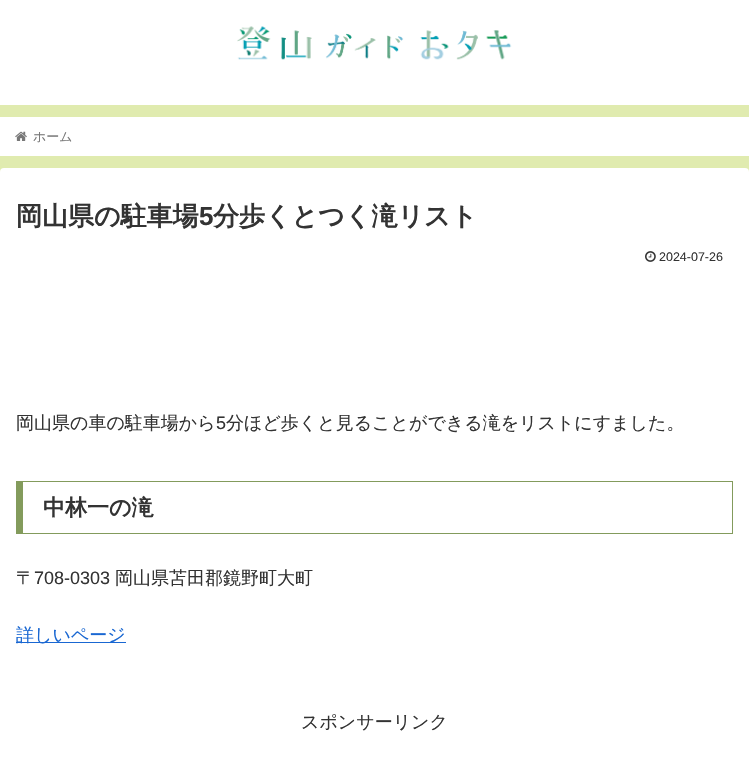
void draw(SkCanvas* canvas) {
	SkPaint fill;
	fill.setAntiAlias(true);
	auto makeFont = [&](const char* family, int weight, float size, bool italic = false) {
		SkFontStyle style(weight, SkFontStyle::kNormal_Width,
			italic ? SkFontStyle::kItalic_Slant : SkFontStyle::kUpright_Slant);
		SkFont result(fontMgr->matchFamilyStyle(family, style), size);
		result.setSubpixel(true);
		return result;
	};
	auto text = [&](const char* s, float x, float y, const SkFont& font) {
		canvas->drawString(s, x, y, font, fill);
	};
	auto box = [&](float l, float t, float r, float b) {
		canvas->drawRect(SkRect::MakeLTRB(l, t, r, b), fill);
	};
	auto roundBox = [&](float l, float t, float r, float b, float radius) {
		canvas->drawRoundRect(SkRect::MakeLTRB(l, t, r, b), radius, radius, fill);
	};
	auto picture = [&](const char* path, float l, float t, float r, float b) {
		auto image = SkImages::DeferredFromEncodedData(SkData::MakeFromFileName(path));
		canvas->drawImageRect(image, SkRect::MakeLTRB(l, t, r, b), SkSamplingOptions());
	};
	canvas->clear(0xFFE0EBAF);
	fill.setColor(0xFFFFFFFF);
	box(0, 0, 749, 105);
	picture("image0.png", 237, 26, 512, 60);
	box(0, 117, 749, 156);
	picture("image1.png", 15, 131, 27, 141);
	roundBox(0, 168, 749, 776, 4);
	picture("image2.png", 645, 251, 656, 262);
	fill.setColor(0xFF839B5C);
	box(16, 481, 733, 482);
	box(732, 481, 733, 534);
	box(16, 533, 733, 534);
	box(16, 481, 23, 534);
	fill.setColor(0xFF1967D2);
	box(16, 642, 126, 643);
	auto font1 = makeFont("WenQuanYi Zen Hei", 500, 13);
	fill.setColor(0xFF777777);
	text("ホーム", 33, 141, font1);
	auto font2 = makeFont("WenQuanYi Zen Hei", 700, 26);
	fill.setColor(0xFF333333);
	text("岡山県の駐車場", 16, 225, font2);
	auto font3 = makeFont("Liberation Sans", 700, 26);
	text("5", 199, 225, font3);
	text("分歩くとつく滝リスト", 213, 225, font2);
	auto font4 = makeFont("Liberation Sans", 400, 12.5f);
	text("2024-07-26", 659, 261, font4);
	auto font5 = makeFont("WenQuanYi Zen Hei", 500, 18);
	text("岡山県の車の駐車場から", 16, 429, font5);
	auto font6 = makeFont("Liberation Sans", 400, 18);
	text("5", 216, 429, font6);
	text("分ほど歩くと見ることができる滝をリストにすました。", 226, 429, font5);
	auto font7 = makeFont("WenQuanYi Zen Hei", 700, 22);
	text("中林一の滝", 43, 515, font7);
	text("〒", 16, 584, font5);
	text("708-0303", 34, 584, font6);
	text("岡山県苫田郡鏡野町大町", 115, 584, font5);
	fill.setColor(0xFF1967D2);
	text("詳しいページ", 16, 641, font5);
	fill.setColor(0xFF333333);
	text("スポンサーリンク", 301, 728, font5);
}
